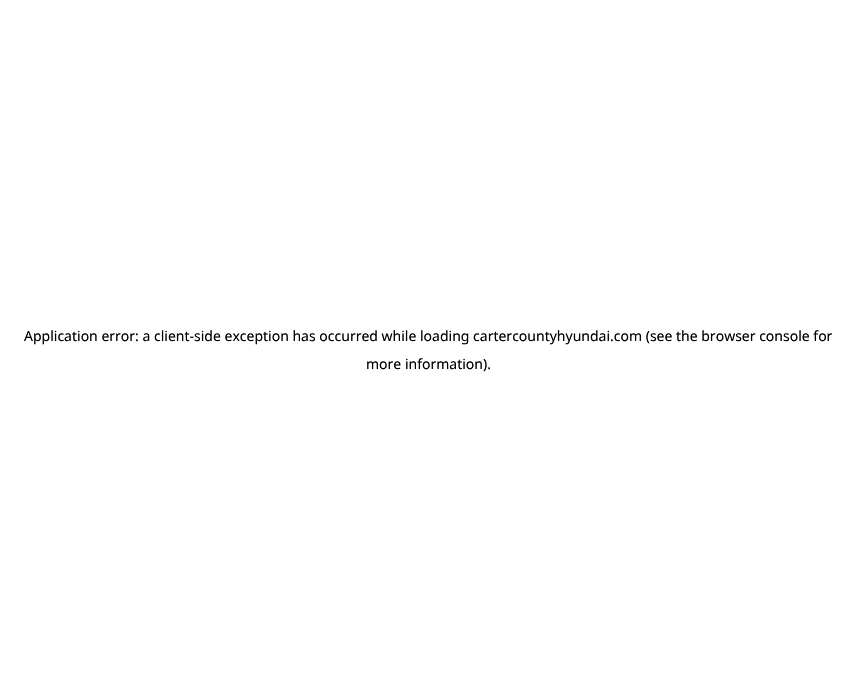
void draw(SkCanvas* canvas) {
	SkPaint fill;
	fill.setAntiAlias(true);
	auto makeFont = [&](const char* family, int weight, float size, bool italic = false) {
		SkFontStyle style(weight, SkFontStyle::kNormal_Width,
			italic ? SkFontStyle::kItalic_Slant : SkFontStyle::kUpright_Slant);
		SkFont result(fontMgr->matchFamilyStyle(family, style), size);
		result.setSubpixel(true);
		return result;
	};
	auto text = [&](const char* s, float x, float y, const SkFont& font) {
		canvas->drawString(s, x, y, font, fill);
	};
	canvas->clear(0xFFFFFFFF);
	auto font1 = makeFont("Noto Sans", 400, 14);
	fill.setColor(0xFF000000);
	text("Application error: a client-side exception has occurred while loading cartercountyhyundai.com (see the browser console for", 24, 341, font1);
	text("more information).", 366, 369, font1);
}
